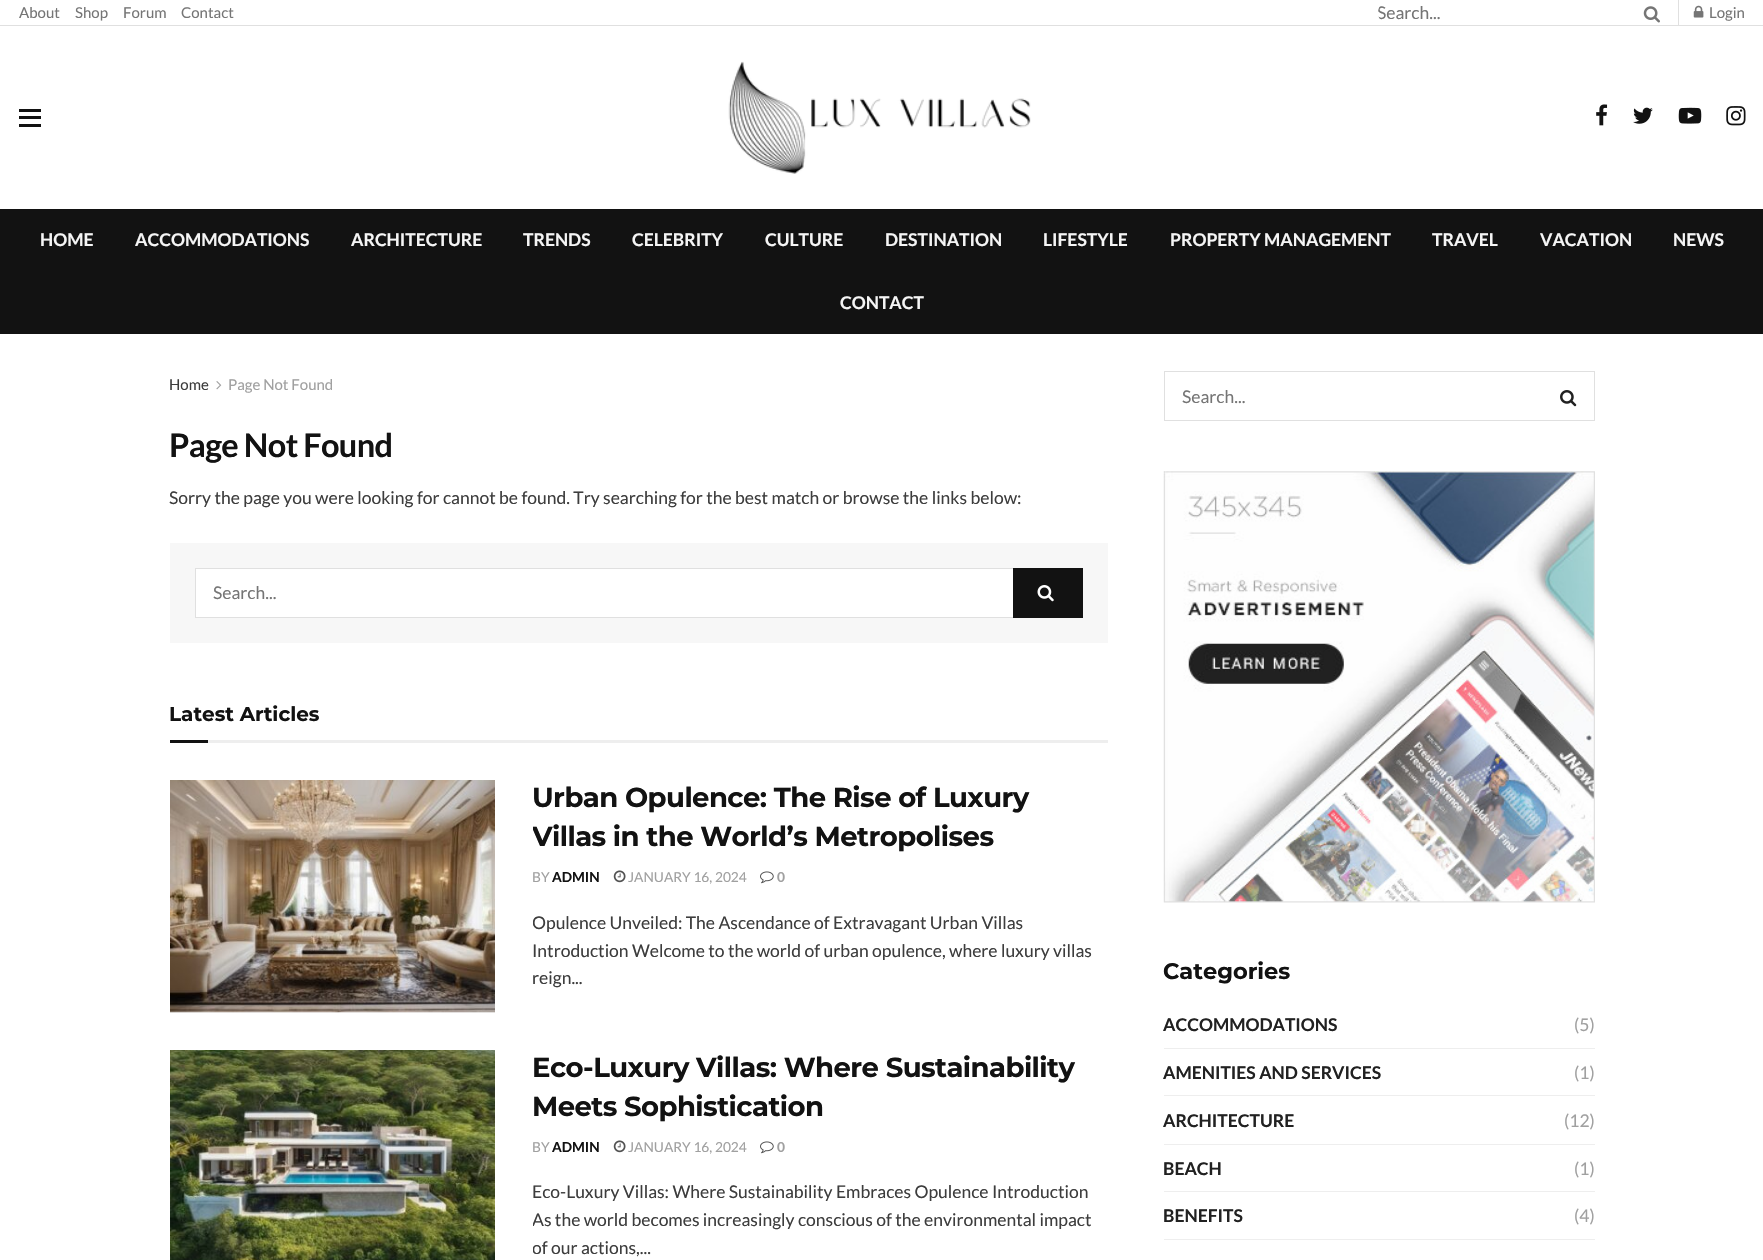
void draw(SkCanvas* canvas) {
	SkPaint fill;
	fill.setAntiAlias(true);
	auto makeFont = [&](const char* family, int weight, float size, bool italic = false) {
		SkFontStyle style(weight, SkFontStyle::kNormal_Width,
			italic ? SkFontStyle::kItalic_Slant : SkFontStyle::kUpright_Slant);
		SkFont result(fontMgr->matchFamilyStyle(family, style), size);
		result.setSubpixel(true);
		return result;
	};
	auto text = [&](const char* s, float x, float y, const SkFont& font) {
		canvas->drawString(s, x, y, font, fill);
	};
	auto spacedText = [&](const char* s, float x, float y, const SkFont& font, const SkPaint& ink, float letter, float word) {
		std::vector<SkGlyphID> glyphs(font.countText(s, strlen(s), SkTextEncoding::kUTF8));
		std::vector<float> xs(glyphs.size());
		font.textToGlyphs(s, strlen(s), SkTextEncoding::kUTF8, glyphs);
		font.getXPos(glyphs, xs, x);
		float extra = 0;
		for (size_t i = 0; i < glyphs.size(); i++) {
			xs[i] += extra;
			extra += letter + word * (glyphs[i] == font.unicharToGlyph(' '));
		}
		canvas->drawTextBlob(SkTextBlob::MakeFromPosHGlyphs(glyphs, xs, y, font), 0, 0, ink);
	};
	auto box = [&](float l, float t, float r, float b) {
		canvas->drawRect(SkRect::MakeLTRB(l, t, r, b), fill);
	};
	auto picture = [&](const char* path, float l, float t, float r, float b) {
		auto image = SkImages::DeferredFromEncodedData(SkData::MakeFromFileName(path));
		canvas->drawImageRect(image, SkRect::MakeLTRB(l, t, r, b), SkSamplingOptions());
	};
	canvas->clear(0xFFFFFFFF);
	fill.setColor(0xFFE0E0E0);
	box(0, 25, 1763, 26);
	box(1678, 0, 1679, 25);
	picture("image0.png", 1643, 6, 1660, 23);
	picture("image1.png", 1693, 5, 1704, 18);
	fill.setColor(0xFF121212);
	box(19, 109, 41, 112);
	box(19, 116, 41, 119);
	box(19, 124, 41, 127);
	picture("image2.png", 728, 61, 1031, 174);
	picture("image3.png", 1596, 104, 1608, 126);
	picture("image4.png", 1633, 107, 1653, 124);
	picture("image5.png", 1678, 107, 1702, 124);
	picture("image6.png", 1726, 106, 1746, 126);
	box(0, 209, 1763, 334);
	picture("image7.png", 216, 381, 222, 390);
	fill.setColor(0xFFF7F7F7);
	box(170, 543, 1108, 643);
	fill.setColor(0xFFFFFFFF);
	box(196, 569, 1013, 617);
	fill.setStyle(SkPaint::kStroke_Style);
	fill.setStrokeWidth(1);
	fill.setColor(0xFFE0E0E0);
	canvas->drawRect(SkRect::MakeLTRB(195.5f, 568.5f, 1082.5f, 617.5f), fill);
	fill.setStyle(SkPaint::kFill_Style);
	fill.setColor(0xFF121212);
	box(1013, 568, 1083, 618);
	picture("image8.png", 1037, 585, 1054, 602);
	fill.setColor(0xFFEEEEEE);
	box(208, 740, 1108, 743);
	fill.setColor(0xFF121212);
	box(170, 740, 208, 743);
	fill.setColor(0xFFF7F7F7);
	box(170, 1012, 495, 1013);
	picture("image9.png", 170, 780, 495, 1013);
	picture("image10.png", 613, 870, 626, 883);
	picture("image11.png", 760, 871, 774, 884);
	picture("image12.png", 170, 1050, 495, 1260);
	picture("image10.png", 613, 1140, 626, 1153);
	picture("image11.png", 760, 1141, 774, 1154);
	fill.setStyle(SkPaint::kStroke_Style);
	fill.setColor(0xFFE0E0E0);
	canvas->drawRect(SkRect::MakeLTRB(1164.5f, 371.5f, 1594.5f, 420.5f), fill);
	picture("image13.png", 1560, 390, 1577, 407);
	picture("image14.png", 1163, 471, 1595, 903);
	fill.setStyle(SkPaint::kFill_Style);
	fill.setColor(0xFFEEEEEE);
	box(1164, 1048, 1595, 1049);
	box(1164, 1095, 1595, 1096);
	box(1164, 1144, 1595, 1145);
	box(1164, 1191, 1595, 1192);
	box(1164, 1239, 1595, 1240);
	auto font1 = makeFont("Lato", 400, 15);
	fill.setColor(0xFF757575);
	text("About", 19, 18, font1);
	text("Shop", 75, 18, font1);
	text("Forum", 123, 18, font1);
	text("Contact", 181, 18, font1);
	canvas->save();
	canvas->clipPath(SkPathBuilder().moveTo(1390.5f, 0).lineTo(1650.5f, 0).cubicTo(1657.5f, 0, 1663, 5.5f, 1663, 12.5f).cubicTo(1663, 19.5f, 1657.5f, 25, 1650.5f, 25).lineTo(1390.5f, 25).cubicTo(1383.5f, 25, 1378, 19.5f, 1378, 12.5f).cubicTo(1378, 5.5f, 1383.5f, 0, 1390.5f, 0).close().detach(), true);
	auto font2 = makeFont("Lato", 400, 17.5f);
	text("Search...", 1377, 19, font2);
	canvas->restore();
	text("Login", 1709, 18, font1);
	auto font3 = makeFont("Lato", 700, 17.5f);
	fill.setColor(0xFFF5F5F5);
	text("HOME", 40, 246, font3);
	text("ACCOMMODATIONS", 135, 246, font3);
	text("ARCHITECTURE", 351, 246, font3);
	text("TRENDS", 523, 246, font3);
	text("CELEBRITY", 632, 246, font3);
	text("CULTURE", 765, 246, font3);
	text("DESTINATION", 885, 246, font3);
	text("LIFESTYLE", 1043, 246, font3);
	text("PROPERTY MANAGEMENT", 1170, 246, font3);
	text("TRAVEL", 1432, 246, font3);
	text("VACATION", 1540, 246, font3);
	text("NEWS", 1673, 246, font3);
	text("CONTACT", 840, 309, font3);
	fill.setColor(0xFF3D3D3D);
	text("Home", 169, 390, font1);
	fill.setColor(0xFFA0A0A0);
	text("Page Not Found", 228, 390, font1);
	auto font4 = makeFont("Lato", 700, 32.5f);
	fill.setColor(0xFF121212);
	spacedText("Page Not Found", 169, 457, font4, fill, -0.6f, 0);
	fill.setColor(0xFF3D3D3D);
	text("Sorry the page you were looking for cannot be found. Try searching for the best match or browse the links below:", 169, 504, font2);
	fill.setColor(0xFF757575);
	text("Search...", 213, 599, font2);
	auto font5 = makeFont("Montserrat", 700, 20);
	fill.setColor(0xFF121212);
	text("Latest Articles", 169, 721, font5);
	auto font6 = makeFont("Montserrat", 700, 27.5f);
	spacedText("Urban Opulence: The Rise of Luxury", 532, 807, font6, fill, -0.55f, 0);
	canvas->save();
	canvas->clipRect(SkRect::MakeLTRB(533, 780, 1108, 993));
	spacedText("Villas in the World’s Metropolises", 532, 846, font6, fill, -0.55f, 0);
	canvas->restore();
	auto font7 = makeFont("Lato", 400, 13.75f);
	fill.setColor(0xFFA0A0A0);
	text("BY", 532, 882, font7);
	auto font8 = makeFont("Lato", 700, 13.75f);
	fill.setColor(0xFF121212);
	text("ADMIN", 552, 882, font8);
	fill.setColor(0xFFA0A0A0);
	text("JANUARY 16, 2024", 628, 882, font7);
	text("0", 777, 882, font8);
	canvas->save();
	canvas->clipRect(SkRect::MakeLTRB(533, 780, 1108, 993));
	fill.setColor(0xFF3D3D3D);
	text("Opulence Unveiled: The Ascendance of Extravagant Urban Villas", 532, 929, font2);
	canvas->restore();
	text("Introduction Welcome to the world of urban opulence, where luxury villas", 532, 957, font2);
	text("reign...", 532, 984, font2);
	fill.setColor(0xFF121212);
	spacedText("Eco-Luxury Villas: Where Sustainability", 532, 1077, font6, fill, -0.55f, 0);
	spacedText("Meets Sophistication", 532, 1116, font6, fill, -0.55f, 0);
	fill.setColor(0xFFA0A0A0);
	text("BY", 532, 1152, font7);
	fill.setColor(0xFF121212);
	text("ADMIN", 552, 1152, font8);
	fill.setColor(0xFFA0A0A0);
	text("JANUARY 16, 2024", 628, 1152, font7);
	text("0", 777, 1152, font8);
	fill.setColor(0xFF3D3D3D);
	text("Eco-Luxury Villas: Where Sustainability Embraces Opulence Introduction", 532, 1198, font2);
	canvas->save();
	canvas->clipRect(SkRect::MakeLTRB(533, 1050, 1108, 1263));
	text("As the world becomes increasingly conscious of the environmental impact", 532, 1226, font2);
	text("of our actions,...", 532, 1254, font2);
	canvas->restore();
	fill.setColor(0xFF757575);
	text("Search...", 1182, 403, font2);
	auto font9 = makeFont("Montserrat", 700, 22.5f);
	fill.setColor(0xFF121212);
	text("Categories", 1163, 979, font9);
	fill.setColor(0xFF212121);
	text("ACCOMMODATIONS", 1163, 1031, font3);
	fill.setColor(0xFFA0A0A0);
	text("(5)", 1574, 1031, font2);
	fill.setColor(0xFF212121);
	text("AMENITIES AND SERVICES", 1163, 1079, font3);
	fill.setColor(0xFFA0A0A0);
	text("(1)", 1574, 1079, font2);
	fill.setColor(0xFF212121);
	text("ARCHITECTURE", 1163, 1127, font3);
	fill.setColor(0xFFA0A0A0);
	text("(12)", 1564, 1127, font2);
	fill.setColor(0xFF212121);
	text("BEACH", 1163, 1175, font3);
	fill.setColor(0xFFA0A0A0);
	text("(1)", 1574, 1175, font2);
	fill.setColor(0xFF212121);
	text("BENEFITS", 1163, 1222, font3);
	fill.setColor(0xFFA0A0A0);
	text("(4)", 1574, 1222, font2);
}
